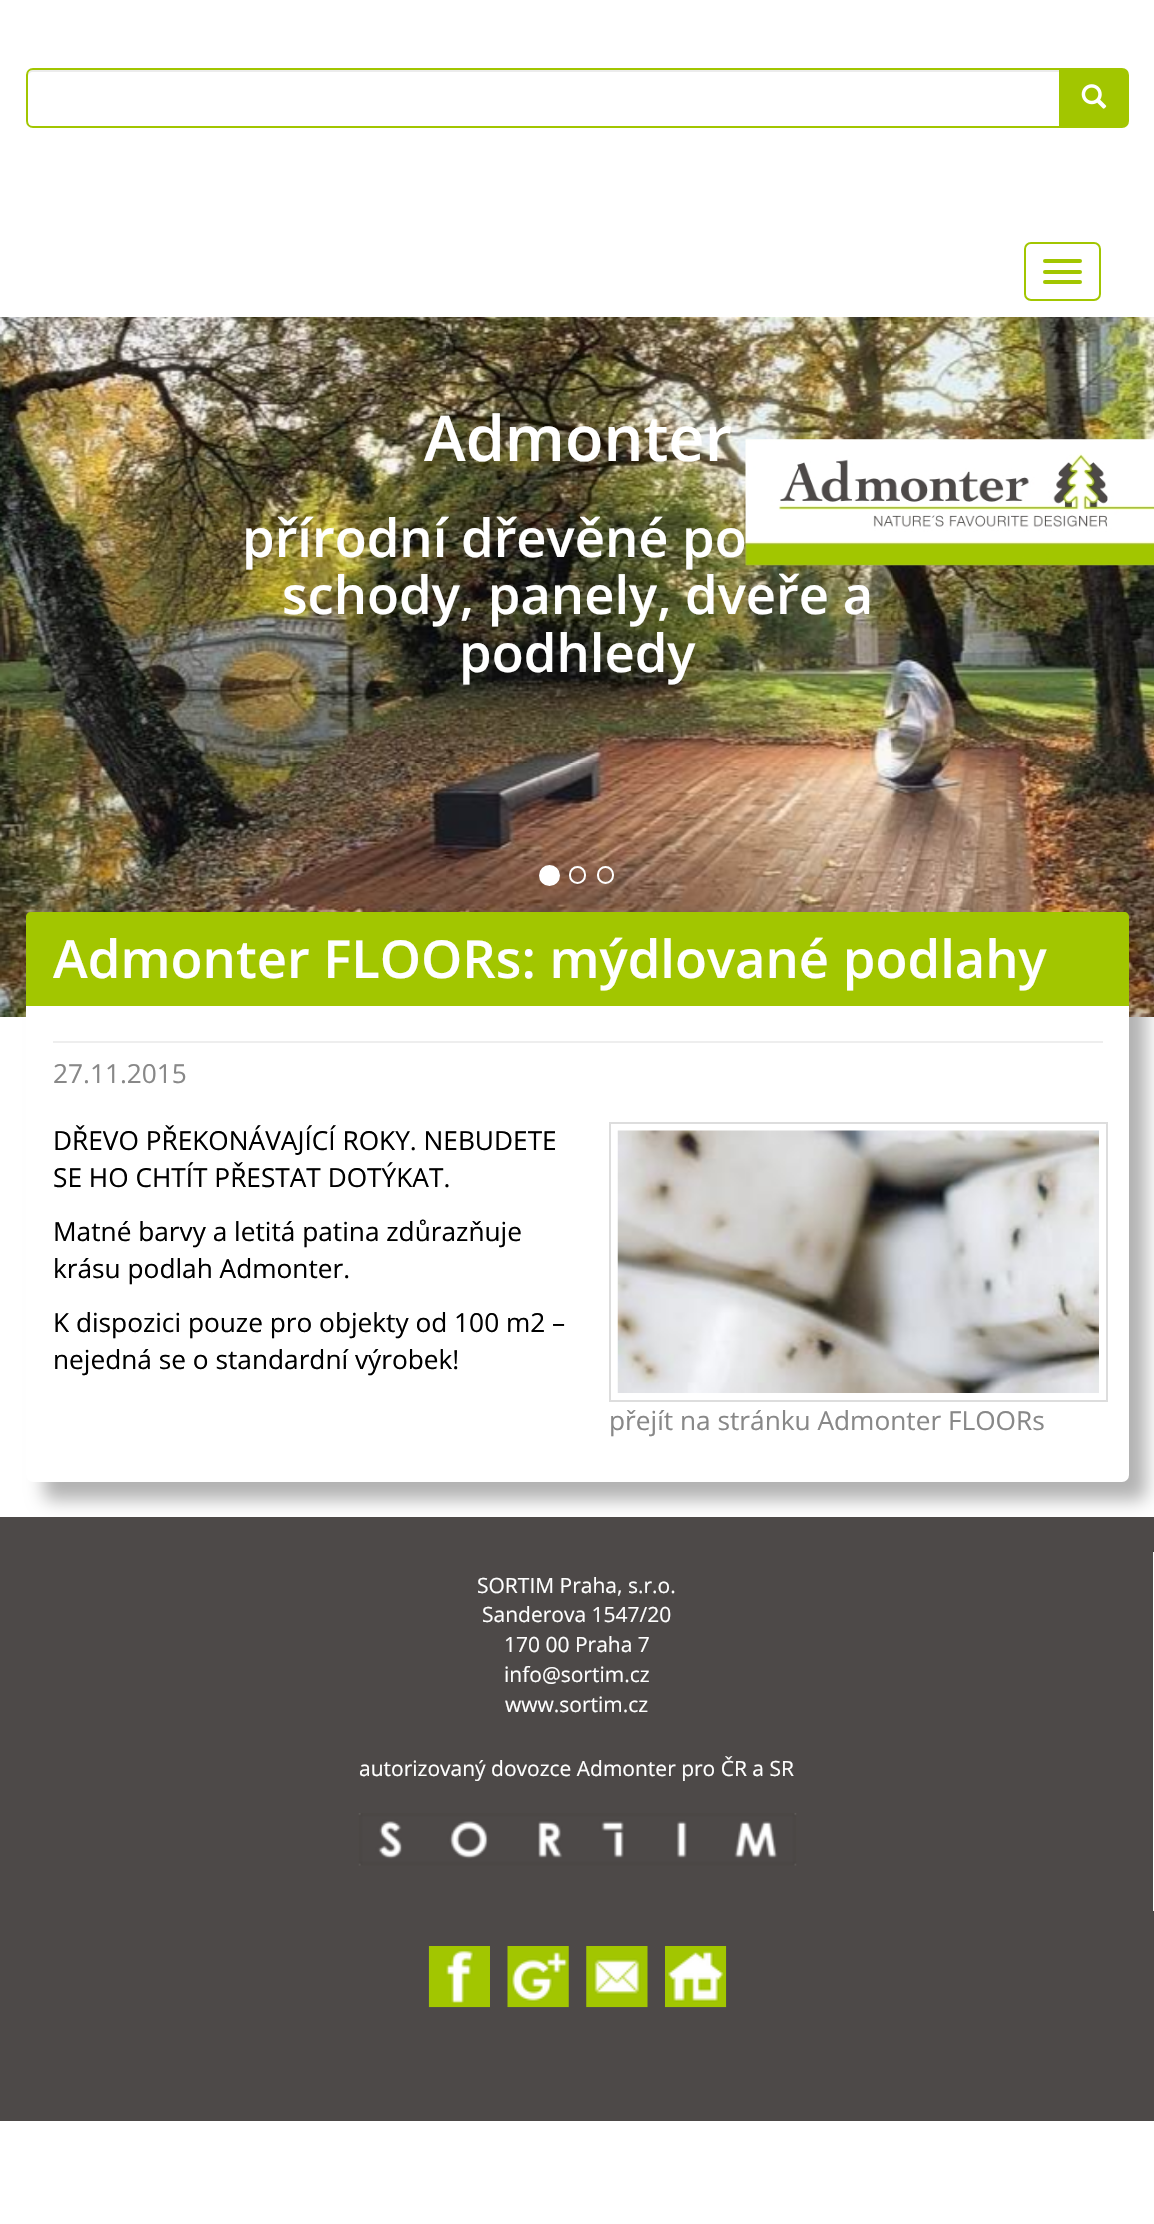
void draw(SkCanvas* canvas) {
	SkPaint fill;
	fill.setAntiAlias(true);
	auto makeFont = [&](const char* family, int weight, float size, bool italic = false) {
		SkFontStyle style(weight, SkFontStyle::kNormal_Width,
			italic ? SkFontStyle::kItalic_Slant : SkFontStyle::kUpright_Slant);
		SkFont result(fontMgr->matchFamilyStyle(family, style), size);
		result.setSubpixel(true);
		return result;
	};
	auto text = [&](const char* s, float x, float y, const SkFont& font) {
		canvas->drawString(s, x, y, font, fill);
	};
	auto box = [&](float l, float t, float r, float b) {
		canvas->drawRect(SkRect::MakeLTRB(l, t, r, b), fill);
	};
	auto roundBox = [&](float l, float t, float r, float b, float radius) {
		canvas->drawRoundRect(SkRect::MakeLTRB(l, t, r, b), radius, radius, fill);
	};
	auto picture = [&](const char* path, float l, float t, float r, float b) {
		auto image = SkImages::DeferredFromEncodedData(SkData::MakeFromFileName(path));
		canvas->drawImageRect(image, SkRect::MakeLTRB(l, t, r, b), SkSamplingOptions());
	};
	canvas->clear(0xFFFFFFFF);
	fill.setColor(0xFFECECEC);
	canvas->drawPath(SkPathBuilder().moveTo(33, 72).lineTo(1059, 72).lineTo(1059, 70).lineTo(33, 70).cubicTo(30, 70, 28, 72, 28, 75).lineTo(28, 77).cubicTo(28, 74, 30, 72, 33, 72).close().detach(), fill);
	fill.setStyle(SkPaint::kStroke_Style);
	fill.setStrokeWidth(2);
	fill.setColor(0xFFA2C600);
	canvas->drawPath(SkPathBuilder().moveTo(33, 69).lineTo(1060, 69).lineTo(1060, 127).lineTo(33, 127).cubicTo(29.5f, 127, 27, 124.5f, 27, 121).lineTo(27, 75).cubicTo(27, 71.5f, 29.5f, 69, 33, 69).close().detach(), fill);
	fill.setStyle(SkPaint::kFill_Style);
	canvas->drawPath(SkPathBuilder().moveTo(1060, 69).lineTo(1122, 69).cubicTo(1125.5f, 69, 1128, 71.5f, 1128, 75).lineTo(1128, 121).cubicTo(1128, 124.5f, 1125.5f, 127, 1122, 127).lineTo(1060, 127).close().detach(), fill);
	fill.setStyle(SkPaint::kStroke_Style);
	canvas->drawPath(SkPathBuilder().moveTo(1060, 69).lineTo(1122, 69).cubicTo(1125.5f, 69, 1128, 71.5f, 1128, 75).lineTo(1128, 121).cubicTo(1128, 124.5f, 1125.5f, 127, 1122, 127).lineTo(1060, 127).close().detach(), fill);
	picture("image0.png", 1081, 84, 1107, 109);
	canvas->drawRoundRect(SkRect::MakeLTRB(1025, 243, 1100, 300), 6, 6, fill);
	fill.setStyle(SkPaint::kFill_Style);
	roundBox(1043, 259, 1082, 263, 2);
	roundBox(1043, 270, 1082, 274, 2);
	roundBox(1043, 280, 1082, 284, 2);
	picture("image1.png", 0, 317, 1154, 1017);
	picture("image2.png", 745, 439, 1154, 566);
	fill.setColor(0xFFFFFFFF);
	canvas->drawCircle(549.5f, 875.5f, 9.5f, fill);
	fill.setStyle(SkPaint::kStroke_Style);
	canvas->drawCircle(549.5f, 875.5f, 9.5f, fill);
	canvas->drawRoundRect(SkRect::MakeLTRB(570, 867, 585, 883), 7.5f, 7.5f, fill);
	canvas->drawRoundRect(SkRect::MakeLTRB(598, 867, 613, 883), 7.5f, 7.5f, fill);
	fill.setStyle(SkPaint::kFill_Style);
	fill.setColor(0xFF4D4948);
	box(0, 1517, 1154, 2121);
	fill.setColor(0x4D000000);
	fill.setMaskFilter(SkMaskFilter::MakeBlur(kNormal_SkBlurStyle, 9));
	canvas->drawRoundRect(SkRect::MakeLTRB(44, 929, 1146, 1500), 7, 7, fill);
	fill.setMaskFilter(nullptr);
	fill.setColor(0xFFFFFFFF);
	roundBox(26, 912, 1129, 1482, 7);
	fill.setColor(0xFFA2C600);
	canvas->drawPath(SkPathBuilder().moveTo(31, 912).lineTo(1124, 912).cubicTo(1127, 912, 1129, 914, 1129, 917).lineTo(1129, 1006).lineTo(26, 1006).lineTo(26, 917).cubicTo(26, 914, 28, 912, 31, 912).close().detach(), fill);
	fill.setColor(0xFFEEEEEE);
	box(53, 1041, 1103, 1043);
	fill.setStyle(SkPaint::kStroke_Style);
	fill.setColor(0xFFDDDDDD);
	canvas->drawRect(SkRect::MakeLTRB(610, 1123, 1107, 1401), fill);
	picture("image3.png", 617, 1130, 1099, 1393);
	fill.setStyle(SkPaint::kFill_Style);
	fill.setColor(0xFFFFFFFF);
	box(1153, 1552, 1154, 1911);
	picture("image4.png", 358, 1813, 797, 1866);
	picture("image5.png", 428, 1946, 490, 2008);
	picture("image6.png", 507, 1946, 569, 2008);
	picture("image7.png", 586, 1946, 648, 2008);
	picture("image8.png", 665, 1946, 727, 2008);
	auto font1 = makeFont("Open Sans", 600, 63);
	text("Admonter", 424, 461, font1);
	auto font2 = makeFont("Open Sans", 600, 52.5f);
	text("přírodní dřevěné po", 242, 557, font2);
	text("schody, panely, dveře a", 282, 614, font2);
	text("podhledy", 459, 672, font2);
	text("Admonter FLOORs: mýdlované podlahy", 53, 978, font2);
	auto font3 = makeFont("Open Sans", 400, 26.25f);
	fill.setColor(0xFF888888);
	text("27.11.2015", 53, 1083, font3);
	fill.setColor(0xFF000000);
	text("DŘEVO PŘEKONÁVAJÍCÍ ROKY. NEBUDETE", 53, 1150, font3);
	text("SE HO CHTÍT PŘESTAT DOTÝKAT.", 53, 1187, font3);
	text("Matné barvy a letitá patina zdůrazňuje", 53, 1241, font3);
	text("krásu podlah Admonter.", 53, 1278, font3);
	text("K dispozici pouze pro objekty od 100 m2 –", 53, 1332, font3);
	text("nejedná se o standardní výrobek!", 53, 1369, font3);
	fill.setColor(0xFF888888);
	text("přejít na stránku Admonter FLOORs", 609, 1430, font3);
	auto font4 = makeFont("Open Sans", 400, 21);
	fill.setColor(0xFFFFFFFF);
	text("SORTIM Praha, s.r.o.", 477, 1593, font4);
	text("Sanderova 1547/20", 482, 1622, font4);
	text("170 00 Praha 7", 504, 1652, font4);
	text("info@sortim.cz", 504, 1682, font4);
	text("www.sortim.cz", 505, 1712, font4);
	text("autorizovaný dovozce Admonter pro ČR a SR", 359, 1776, font4);
}
